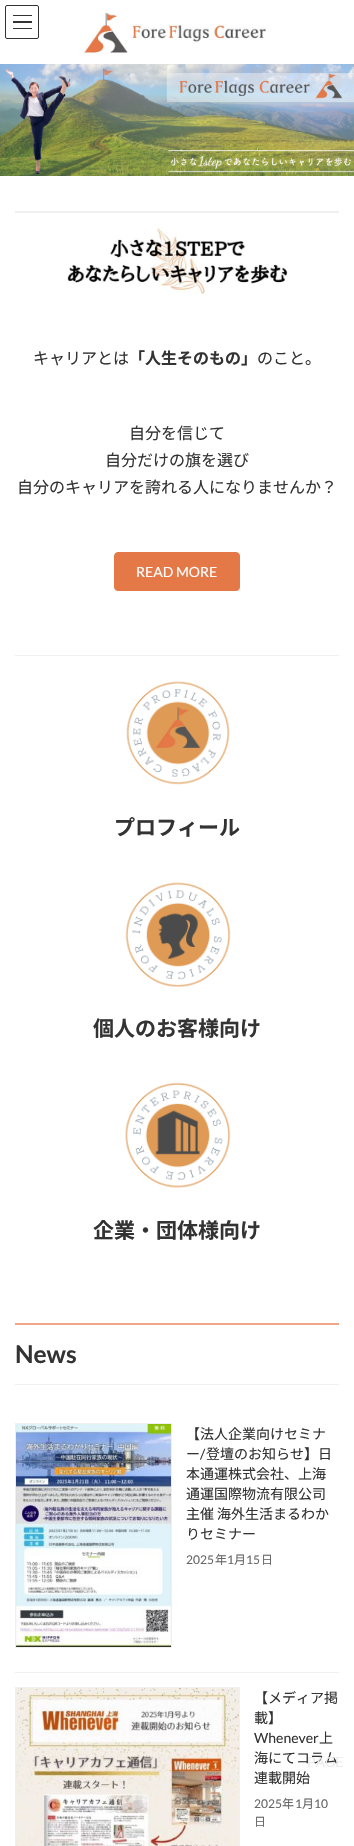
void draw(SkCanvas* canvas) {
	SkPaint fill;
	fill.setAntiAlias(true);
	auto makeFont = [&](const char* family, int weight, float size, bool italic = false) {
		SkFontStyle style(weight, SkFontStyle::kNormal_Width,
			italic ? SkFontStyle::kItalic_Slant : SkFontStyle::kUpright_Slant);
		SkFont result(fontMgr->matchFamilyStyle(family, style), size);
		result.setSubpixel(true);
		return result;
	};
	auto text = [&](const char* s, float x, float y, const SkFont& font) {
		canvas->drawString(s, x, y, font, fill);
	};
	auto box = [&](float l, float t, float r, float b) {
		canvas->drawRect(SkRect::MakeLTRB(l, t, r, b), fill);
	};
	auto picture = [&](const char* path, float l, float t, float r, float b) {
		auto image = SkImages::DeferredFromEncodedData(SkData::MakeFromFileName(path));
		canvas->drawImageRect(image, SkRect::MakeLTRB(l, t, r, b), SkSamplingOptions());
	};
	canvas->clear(0xFFFFFFFF);
	fill.setColor(0xFF333333);
	box(13, 15, 32, 16);
	box(13, 21, 32, 23);
	box(13, 28, 32, 29);
	fill.setStyle(SkPaint::kStroke_Style);
	fill.setStrokeWidth(1);
	canvas->drawRoundRect(SkRect::MakeLTRB(5.5f, 5.5f, 38.5f, 38.5f), 1.5f, 1.5f, fill);
	picture("image0.png", 83, 12, 266, 54);
	picture("image1.png", 0, 64, 354, 176);
	fill.setStyle(SkPaint::kFill_Style);
	fill.setColor(0xFFF0F0F0);
	box(15, 211, 339, 213);
	picture("image2.png", 67, 227, 288, 294);
	fill.setColor(0xFFE47947);
	canvas->drawRoundRect(SkRect::MakeLTRB(114.5f, 552.5f, 239.5f, 590.5f), 3.5f, 3.5f, fill);
	fill.setStyle(SkPaint::kStroke_Style);
	canvas->drawRoundRect(SkRect::MakeLTRB(114.5f, 552.5f, 239.5f, 590.5f), 3.5f, 3.5f, fill);
	fill.setStyle(SkPaint::kFill_Style);
	fill.setColor(0xFFF0F0F0);
	box(15, 655, 339, 656);
	picture("image3.png", 126, 681, 230, 785);
	picture("image4.png", 125, 882, 231, 987);
	picture("image5.png", 125, 1082, 231, 1188);
	fill.setColor(0xFFF2A587);
	box(15, 1323, 339, 1325);
	fill.setColor(0xFFF0F0F0);
	box(15, 1384, 339, 1385);
	box(15, 1672, 339, 1673);
	fill.setStyle(SkPaint::kStroke_Style);
	canvas->drawRect(SkRect::MakeLTRB(15.5f, 1423.5f, 171.5f, 1647.5f), fill);
	picture("image6.png", 16, 1424, 171, 1647);
	canvas->drawRect(SkRect::MakeLTRB(15.5f, 1687.5f, 239.5f, 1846.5f), fill);
	picture("image7.png", 16, 1688, 239, 1846);
	auto font1 = makeFont("Noto Sans JP", 400, 16);
	fill.setStyle(SkPaint::kFill_Style);
	fill.setColor(0xFF333333);
	text("キャリアとは", 33, 364, font1);
	auto font2 = makeFont("Noto Sans JP", 700, 16);
	text("「人生そのもの」", 129, 364, font2);
	text("のこと。", 257, 364, font1);
	text("自分を信じて", 129, 439, font1);
	text("自分だけの旗を選び", 105, 466, font1);
	text("自分のキャリアを誇れる人になりませんか？", 17, 493, font1);
	auto font3 = makeFont("Lato", 400, 14);
	fill.setColor(0xFFFFFFFF);
	text("READ MORE", 136, 577, font3);
	auto font4 = makeFont("Noto Sans JP", 700, 21);
	fill.setColor(0xFF333333);
	text("プロフィール", 114, 835, font4);
	text("個人のお客様向け", 93, 1036, font4);
	text("企業・団体様向け", 93, 1238, font4);
	auto font5 = makeFont("Lato", 700, 24.5f);
	text("News", 15, 1363, font5);
	auto font6 = makeFont("Noto Sans JP", 400, 14);
	text("【法人企業向けセミナ", 186, 1439, font6);
	text("ー", 186, 1459, font6);
	text("/", 200, 1459, font3);
	text("登壇のお知らせ】日", 206, 1459, font6);
	text("本通運株式会社、上海", 186, 1479, font6);
	text("通運国際物流有限公司", 186, 1499, font6);
	text("主催", 186, 1519, font6);
	text("海外生活まるわか", 217, 1519, font6);
	text("りセミナー", 186, 1539, font6);
	auto font7 = makeFont("Lato", 400, 12);
	fill.setColor(0xFF666666);
	text("2025", 186, 1564, font7);
	auto font8 = makeFont("Noto Sans JP", 400, 12);
	text("年", 215, 1564, font8);
	text("1", 227, 1564, font7);
	text("月", 234, 1564, font8);
	text("15", 246, 1564, font7);
	text("日", 261, 1564, font8);
	fill.setColor(0xFF333333);
	text("【メディア掲", 254, 1703, font6);
	text("載】", 254, 1723, font6);
	text("Whenever", 254, 1743, font3);
	text("上", 319, 1743, font6);
	text("海にてコラム", 254, 1763, font6);
	text("連載開始", 254, 1783, font6);
	fill.setColor(0xFF666666);
	text("2025", 254, 1808, font7);
	text("年", 282, 1808, font8);
	text("1", 295, 1808, font7);
	text("月", 302, 1808, font8);
	text("10", 314, 1808, font7);
	text("日", 254, 1826, font8);
	fill.setColor(0xFFECECEC);
	text("PAGE", 307, 1767, font3);
}
